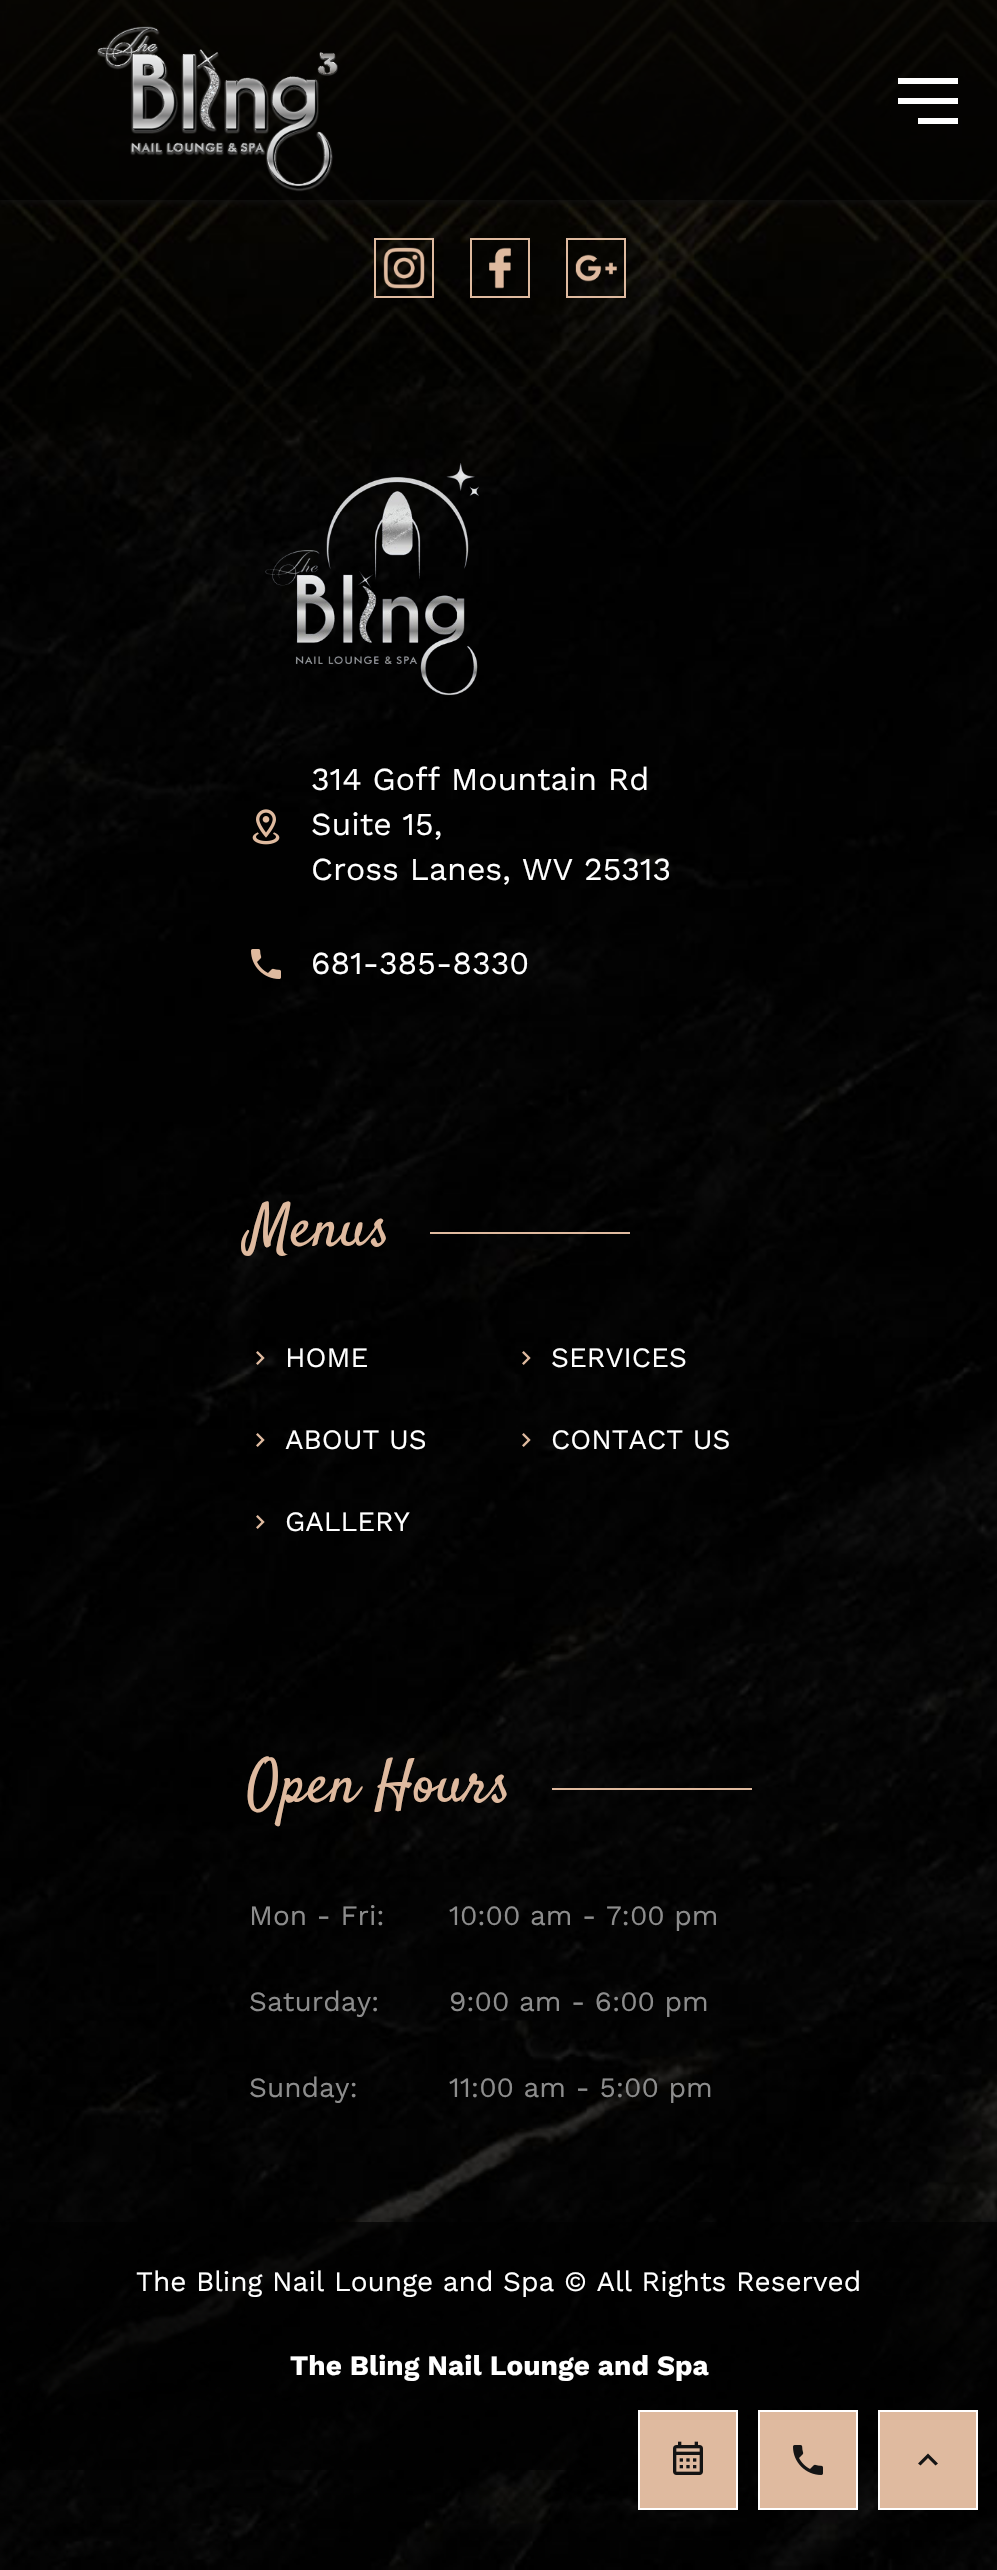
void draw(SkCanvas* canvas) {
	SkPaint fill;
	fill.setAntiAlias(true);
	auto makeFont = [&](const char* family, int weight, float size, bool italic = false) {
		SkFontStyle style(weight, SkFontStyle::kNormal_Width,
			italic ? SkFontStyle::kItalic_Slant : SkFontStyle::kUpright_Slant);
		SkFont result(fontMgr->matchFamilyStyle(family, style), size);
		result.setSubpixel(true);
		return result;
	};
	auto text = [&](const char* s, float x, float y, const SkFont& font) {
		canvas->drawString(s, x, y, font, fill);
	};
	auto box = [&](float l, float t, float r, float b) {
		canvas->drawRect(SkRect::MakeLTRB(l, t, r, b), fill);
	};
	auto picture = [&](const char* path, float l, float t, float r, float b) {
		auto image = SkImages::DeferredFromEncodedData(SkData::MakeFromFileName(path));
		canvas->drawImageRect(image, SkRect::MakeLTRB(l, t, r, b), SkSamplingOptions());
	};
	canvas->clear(0xFFFFFFFF);
	picture("image1.png", 0, 0, 997, 2570);
	canvas->save();
	canvas->clipRect(SkRect::MakeLTRB(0, 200, 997, 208));
	fill.setColor(0xFF111111);
	fill.setMaskFilter(SkMaskFilter::MakeBlur(kNormal_SkBlurStyle, 3));
	canvas->drawRect(SkRect::MakeLTRB(0, 2, 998, 202), fill);
	fill.setMaskFilter(nullptr);
	canvas->restore();
	fill.setColor(0xB3000000);
	box(0, 0, 997, 200);
	picture("image0.png", 97, 26, 338, 192);
	fill.setColor(0xFFFFFFFF);
	box(898, 78, 958, 84);
	box(898, 98, 958, 104);
	box(918, 118, 958, 124);
	fill.setStyle(SkPaint::kStroke_Style);
	fill.setStrokeWidth(2);
	fill.setColor(0xFFDFBA9F);
	canvas->drawRect(SkRect::MakeLTRB(375, 239, 433, 297), fill);
	picture("image2.png", 383, 247, 425, 289);
	canvas->drawRect(SkRect::MakeLTRB(471, 239, 529, 297), fill);
	picture("image3.png", 489, 247, 511, 289);
	canvas->drawRect(SkRect::MakeLTRB(567, 239, 625, 297), fill);
	picture("image4.png", 575, 254, 617, 282);
	picture("image5.png", 265, 463, 479, 696);
	picture("image6.png", 252, 809, 280, 845);
	picture("image7.png", 251, 949, 281, 979);
	fill.setStyle(SkPaint::kFill_Style);
	box(430, 1232, 630, 1234);
	picture("image8.png", 256, 1351, 265, 1365);
	picture("image9.png", 522, 1351, 531, 1365);
	picture("image10.png", 256, 1433, 265, 1447);
	picture("image11.png", 522, 1433, 531, 1447);
	picture("image12.png", 256, 1515, 265, 1529);
	box(552, 1788, 752, 1790);
	fill.setColor(0xB3000000);
	box(0, 2222, 997, 2470);
	fill.setColor(0xFFDFBA9F);
	canvas->drawRect(SkRect::MakeLTRB(639, 2411, 737, 2509), fill);
	fill.setStyle(SkPaint::kStroke_Style);
	fill.setColor(0xFFFFFFFF);
	canvas->drawRect(SkRect::MakeLTRB(639, 2411, 737, 2509), fill);
	picture("image13.png", 673, 2441, 703, 2475);
	fill.setStyle(SkPaint::kFill_Style);
	fill.setColor(0xFFDFBA9F);
	canvas->drawRect(SkRect::MakeLTRB(759, 2411, 857, 2509), fill);
	fill.setStyle(SkPaint::kStroke_Style);
	fill.setColor(0xFFFFFFFF);
	canvas->drawRect(SkRect::MakeLTRB(759, 2411, 857, 2509), fill);
	picture("image14.png", 793, 2445, 823, 2475);
	fill.setStyle(SkPaint::kFill_Style);
	fill.setColor(0xFFDFBA9F);
	canvas->drawRect(SkRect::MakeLTRB(879, 2411, 977, 2509), fill);
	fill.setStyle(SkPaint::kStroke_Style);
	fill.setColor(0xFFFFFFFF);
	canvas->drawRect(SkRect::MakeLTRB(879, 2411, 977, 2509), fill);
	fill.setStyle(SkPaint::kFill_Style);
	fill.setColor(0xFF141414);
	canvas->drawPath(SkPathBuilder().moveTo(920.5f, 2465.5f).lineTo(928, 2458).lineTo(935.5f, 2465.5f).lineTo(938, 2463.5f).lineTo(928, 2453.5f).lineTo(918, 2463.5f).close().detach(), fill);
	auto font1 = makeFont("Work Sans", 400, 32);
	fill.setColor(0xFFFFFFFF);
	text("314 Goff Mountain Rd", 311, 790, font1);
	text("Suite 15,", 311, 835, font1);
	text("Cross Lanes, WV 25313", 311, 880, font1);
	text("681-385-8330", 311, 974, font1);
	auto font2 = makeFont("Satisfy", 400, 60);
	fill.setColor(0xFFDFBA9F);
	text("Menus", 247, 1245, font2);
	auto font3 = makeFont("Work Sans", 400, 28);
	fill.setColor(0xFFFFFFFF);
	text("HOME", 285, 1367, font3);
	text("SERVICES", 551, 1367, font3);
	text("ABOUT US", 285, 1449, font3);
	text("CONTACT US", 551, 1449, font3);
	text("GALLERY", 285, 1531, font3);
	fill.setColor(0xFFDFBA9F);
	text("Open Hours", 247, 1801, font2);
	fill.setColor(0xFF8D8D8D);
	text("Mon - Fri:", 249, 1925, font3);
	text("10:00 am - 7:00 pm", 449, 1925, font3);
	text("Saturday:", 249, 2011, font3);
	text("9:00 am - 6:00 pm", 449, 2011, font3);
	text("Sunday:", 249, 2097, font3);
	text("11:00 am - 5:00 pm", 449, 2097, font3);
	fill.setColor(0xFFFFFFFF);
	text("The Bling Nail Lounge and Spa © All Rights Reserved", 136, 2291, font3);
	auto font4 = makeFont("Work Sans", 700, 28);
	text("The Bling Nail Lounge and Spa", 290, 2375, font4);
}
